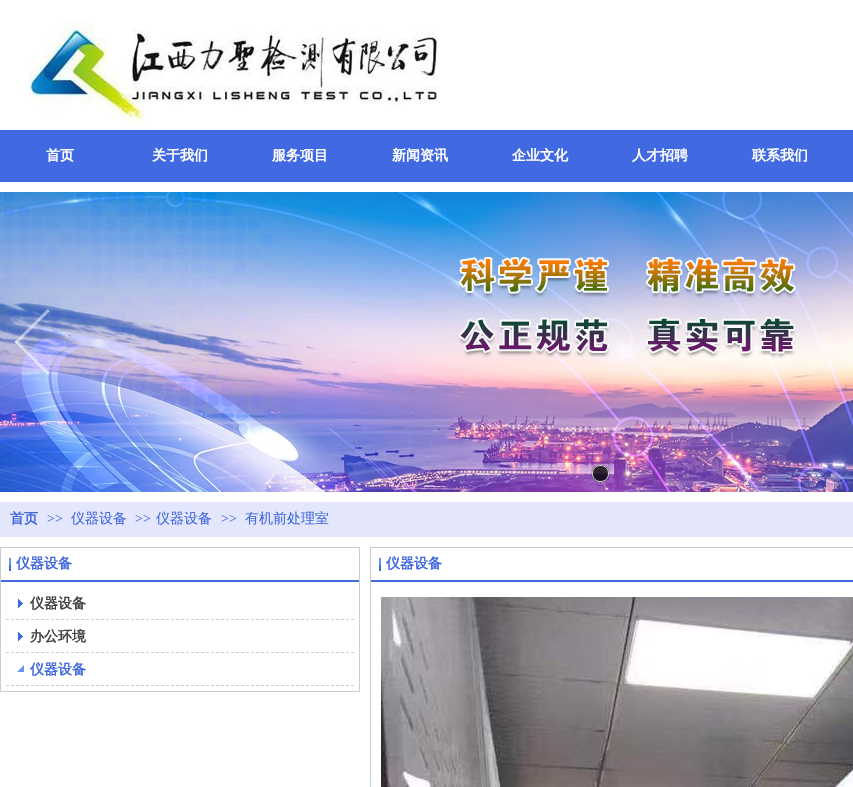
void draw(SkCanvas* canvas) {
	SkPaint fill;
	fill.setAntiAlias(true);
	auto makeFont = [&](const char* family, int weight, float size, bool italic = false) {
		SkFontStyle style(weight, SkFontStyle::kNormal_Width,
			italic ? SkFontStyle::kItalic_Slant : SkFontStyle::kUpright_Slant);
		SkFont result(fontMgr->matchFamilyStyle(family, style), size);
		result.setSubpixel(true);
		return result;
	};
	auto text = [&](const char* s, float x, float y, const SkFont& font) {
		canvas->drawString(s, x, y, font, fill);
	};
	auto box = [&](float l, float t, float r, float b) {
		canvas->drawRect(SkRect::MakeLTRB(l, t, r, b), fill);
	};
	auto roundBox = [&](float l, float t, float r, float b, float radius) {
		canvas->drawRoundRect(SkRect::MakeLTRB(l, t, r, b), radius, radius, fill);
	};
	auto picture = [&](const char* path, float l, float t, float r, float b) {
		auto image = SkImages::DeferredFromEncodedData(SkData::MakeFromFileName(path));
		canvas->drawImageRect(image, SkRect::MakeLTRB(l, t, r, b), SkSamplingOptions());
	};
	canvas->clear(0xFFFFFFFF);
	picture("image0.png", 28, 21, 437, 124);
	fill.setColor(0xFF4169E2);
	box(0, 130, 853, 182);
	picture("image1.png", 0, 192, 853, 492);
	fill.setColor(0x80FFFFFF);
	canvas->drawPath(SkPathBuilder().moveTo(14.5f, 342).lineTo(47.5f, 309).lineTo(50, 311).lineTo(16.5f, 344).close().detach(), fill);
	canvas->drawPath(SkPathBuilder().moveTo(14.5f, 342).lineTo(16.5f, 340).lineTo(50, 373).lineTo(47.5f, 375).close().detach(), fill);
	canvas->save();
	canvas->clipPath(SkPathBuilder(SkPathFillType::kEvenOdd).moveTo(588, 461).lineTo(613, 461).lineTo(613, 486).lineTo(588, 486).close().moveTo(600, 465).lineTo(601, 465).cubicTo(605.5f, 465, 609, 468.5f, 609, 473).lineTo(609, 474).cubicTo(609, 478.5f, 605.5f, 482, 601, 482).lineTo(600, 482).cubicTo(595.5f, 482, 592, 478.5f, 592, 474).lineTo(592, 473).cubicTo(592, 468.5f, 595.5f, 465, 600, 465).close().detach(), true);
	fill.setColor(0x7A000000);
	fill.setMaskFilter(SkMaskFilter::MakeBlur(kNormal_SkBlurStyle, 1));
	canvas->drawRoundRect(SkRect::MakeLTRB(592, 465, 609, 482), 8, 8, fill);
	fill.setMaskFilter(nullptr);
	canvas->restore();
	fill.setColor(0xCC000000);
	roundBox(592, 465, 609, 482, 8);
	fill.setStyle(SkPaint::kStroke_Style);
	fill.setStrokeWidth(1);
	fill.setColor(0xCCFFFFFF);
	canvas->drawRoundRect(SkRect::MakeLTRB(592.5f, 465.5f, 608.5f, 481.5f), 7.5f, 7.5f, fill);
	fill.setStyle(SkPaint::kFill_Style);
	fill.setColor(0xFFE4E6FB);
	box(0, 502, 853, 537);
	fill.setStyle(SkPaint::kStroke_Style);
	fill.setColor(0xFFCCCCCC);
	canvas->drawRect(SkRect::MakeLTRB(0.5f, 547.5f, 359.5f, 691.5f), fill);
	picture("image2.png", 9, 558, 11, 571);
	fill.setStyle(SkPaint::kFill_Style);
	fill.setColor(0xFF4169E2);
	box(1, 580, 359, 582);
	fill.setStyle(SkPaint::kStroke_Style);
	fill.setColor(0xFFCCCCCC);
	fill.setPathEffect(SkDashPathEffect::Make({{3, 2}}, 0));
	canvas->drawPath(SkPathBuilder().moveTo(6, 619.5f).lineTo(354, 619.5f).detach(), fill);
	fill.setPathEffect(nullptr);
	picture("image3.png", 18, 599, 23, 608);
	fill.setPathEffect(SkDashPathEffect::Make({{3, 2}}, 0));
	canvas->drawPath(SkPathBuilder().moveTo(6, 652.5f).lineTo(354, 652.5f).detach(), fill);
	fill.setPathEffect(nullptr);
	picture("image3.png", 18, 632, 23, 641);
	fill.setPathEffect(SkDashPathEffect::Make({{3, 2}}, 0));
	canvas->drawPath(SkPathBuilder().moveTo(6, 685.5f).lineTo(354, 685.5f).detach(), fill);
	fill.setPathEffect(nullptr);
	picture("image4.png", 17, 665, 24, 672);
	canvas->drawRect(SkRect::MakeLTRB(370.5f, 547.5f, 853.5f, 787.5f), fill);
	picture("image2.png", 379, 558, 381, 571);
	fill.setStyle(SkPaint::kFill_Style);
	fill.setColor(0xFF4169E2);
	box(371, 580, 853, 582);
	picture("image5.png", 381, 597, 853, 787);
	auto font1 = makeFont("WenQuanYi Zen Hei", 700, 14);
	fill.setColor(0xFFFFFFFF);
	text("首页", 46, 160, font1);
	text("关于我们", 152, 160, font1);
	text("服务项目", 272, 160, font1);
	text("新闻资讯", 392, 160, font1);
	text("企业文化", 512, 160, font1);
	text("人才招聘", 632, 160, font1);
	text("联系我们", 752, 160, font1);
	fill.setColor(0xFF4269E0);
	text("首页", 10, 523, font1);
	auto font2 = makeFont("Liberation Serif", 400, 14);
	text(">>", 47, 523, font2);
	auto font3 = makeFont("WenQuanYi Zen Hei", 500, 14);
	text("仪器设备", 71, 523, font3);
	text(">>", 135, 523, font2);
	text("仪器设备", 156, 523, font3);
	text(">>", 221, 523, font2);
	text("有机前处理室", 245, 523, font3);
	text("仪器设备", 16, 568, font1);
	fill.setColor(0xFF434343);
	text("仪器设备", 30, 608, font1);
	text("办公环境", 30, 641, font1);
	fill.setColor(0xFF4269E0);
	text("仪器设备", 30, 674, font1);
	text("仪器设备", 386, 568, font1);
}
